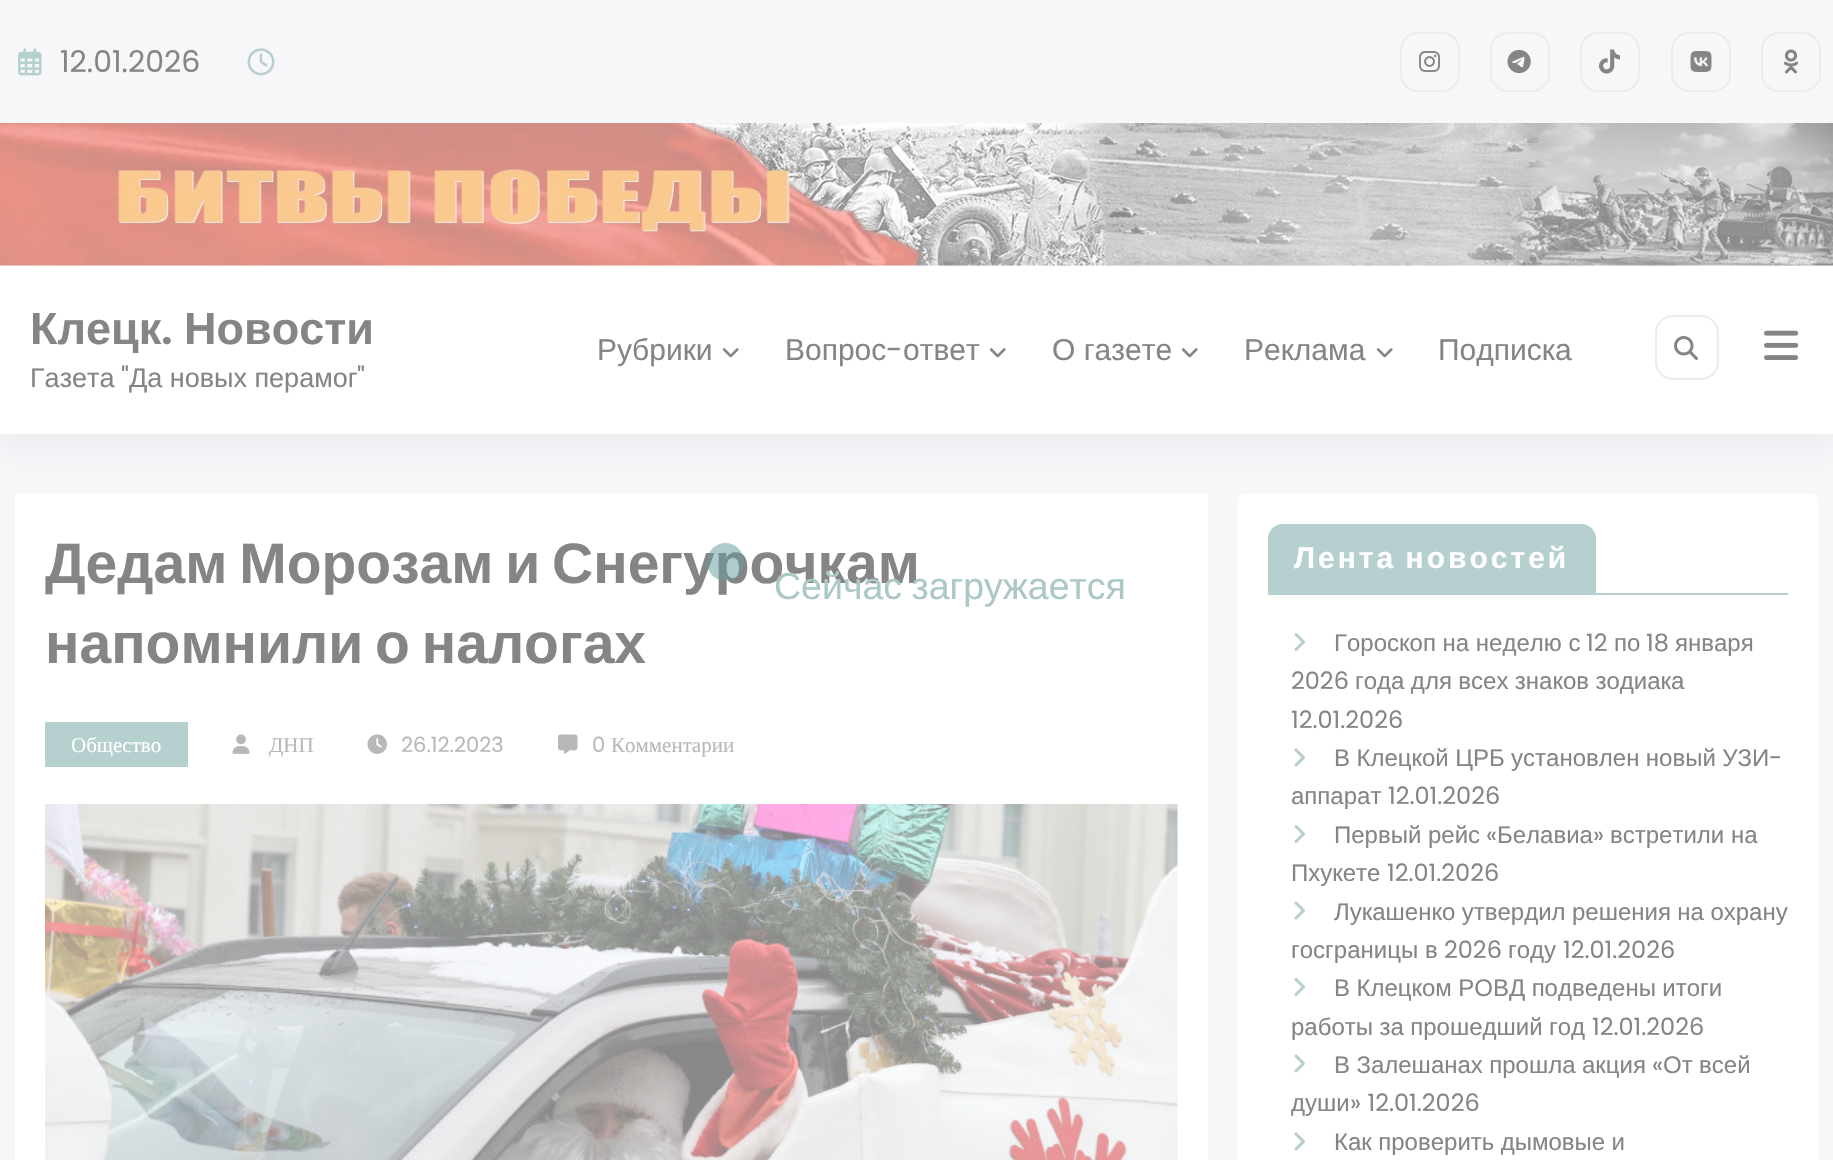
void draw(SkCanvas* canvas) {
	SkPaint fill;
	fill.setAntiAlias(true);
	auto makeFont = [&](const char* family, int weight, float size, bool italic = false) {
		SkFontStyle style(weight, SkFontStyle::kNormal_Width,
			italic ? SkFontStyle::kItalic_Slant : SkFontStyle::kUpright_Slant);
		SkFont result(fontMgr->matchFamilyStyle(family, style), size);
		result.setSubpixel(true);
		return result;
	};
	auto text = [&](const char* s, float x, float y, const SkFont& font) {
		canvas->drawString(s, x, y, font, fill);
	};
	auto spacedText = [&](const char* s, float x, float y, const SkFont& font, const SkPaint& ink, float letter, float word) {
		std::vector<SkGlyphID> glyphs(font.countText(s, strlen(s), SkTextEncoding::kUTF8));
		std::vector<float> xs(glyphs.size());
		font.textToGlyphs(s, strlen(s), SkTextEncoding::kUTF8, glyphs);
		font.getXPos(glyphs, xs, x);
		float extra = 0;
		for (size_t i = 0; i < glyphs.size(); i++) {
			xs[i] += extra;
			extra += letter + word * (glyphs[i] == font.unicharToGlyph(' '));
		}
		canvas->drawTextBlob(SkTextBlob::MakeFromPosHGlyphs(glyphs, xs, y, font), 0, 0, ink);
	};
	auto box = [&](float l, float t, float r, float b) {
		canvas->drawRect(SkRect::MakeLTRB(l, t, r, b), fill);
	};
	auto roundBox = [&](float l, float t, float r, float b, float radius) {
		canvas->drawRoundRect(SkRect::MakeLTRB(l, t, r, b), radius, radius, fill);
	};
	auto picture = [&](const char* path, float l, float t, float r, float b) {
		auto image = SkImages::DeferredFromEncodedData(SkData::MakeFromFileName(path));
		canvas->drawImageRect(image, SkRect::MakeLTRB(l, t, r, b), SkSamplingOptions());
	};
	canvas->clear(0xFFF7F7FA);
	picture("image0.png", 18, 48, 42, 76);
	picture("image1.png", 247, 48, 275, 76);
	fill.setStyle(SkPaint::kStroke_Style);
	fill.setStrokeWidth(2);
	fill.setColor(0xFFECECEC);
	canvas->drawRoundRect(SkRect::MakeLTRB(1401, 33, 1459, 91), 17, 17, fill);
	picture("image2.png", 1419, 51, 1440, 72);
	canvas->drawRoundRect(SkRect::MakeLTRB(1491, 33, 1549, 91), 17, 17, fill);
	picture("image3.png", 1507, 49, 1531, 74);
	canvas->drawRoundRect(SkRect::MakeLTRB(1581, 33, 1639, 91), 17, 17, fill);
	picture("image4.png", 1599, 49, 1620, 74);
	canvas->drawRoundRect(SkRect::MakeLTRB(1672, 33, 1730, 91), 17, 17, fill);
	picture("image5.png", 1690, 51, 1712, 72);
	canvas->drawRoundRect(SkRect::MakeLTRB(1762, 33, 1820, 91), 17, 17, fill);
	picture("image6.png", 1783, 49, 1799, 74);
	picture("image7.png", 0, 123, 1833, 266);
	fill.setStyle(SkPaint::kFill_Style);
	fill.setColor(0xFFFFFFFF);
	box(15, 494, 1208, 1160);
	roundBox(1238, 494, 1818, 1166, 6);
	fill.setColor(0x1A8E8D95);
	fill.setMaskFilter(SkMaskFilter::MakeBlur(kNormal_SkBlurStyle, 15));
	canvas->drawRect(SkRect::MakeLTRB(0, 281, 1833, 449), fill);
	fill.setMaskFilter(nullptr);
	fill.setColor(0xFFFFFFFF);
	box(0, 266, 1833, 434);
	picture("image8.png", 722, 348, 739, 358);
	picture("image8.png", 989, 348, 1006, 358);
	picture("image8.png", 1181, 348, 1198, 358);
	picture("image8.png", 1376, 348, 1393, 358);
	fill.setStyle(SkPaint::kStroke_Style);
	fill.setColor(0xFFECECEC);
	canvas->drawRoundRect(SkRect::MakeLTRB(1656, 316, 1718, 379), 17, 17, fill);
	picture("image9.png", 1674, 336, 1698, 360);
	picture("image10.png", 1764, 330, 1799, 360);
	fill.setStyle(SkPaint::kFill_Style);
	fill.setColor(0xFFB6CFCF);
	box(45, 722, 188, 767);
	picture("image11.png", 232, 734, 250, 754);
	picture("image12.png", 367, 734, 387, 754);
	picture("image13.png", 558, 734, 578, 754);
	picture("image14.png", 45, 804, 1178, 1160);
	box(1268, 593, 1788, 595);
	canvas->drawPath(SkPathBuilder().moveTo(1283, 524).lineTo(1581, 524).cubicTo(1589.5f, 524, 1596, 530.5f, 1596, 539).lineTo(1596, 593).lineTo(1268, 593).lineTo(1268, 539).cubicTo(1268, 530.5f, 1274.5f, 524, 1283, 524).close().detach(), fill);
	picture("image15.png", 1294, 633, 1305, 651);
	picture("image16.png", 1294, 748, 1305, 767);
	picture("image15.png", 1294, 825, 1305, 843);
	picture("image16.png", 1294, 901, 1305, 920);
	picture("image15.png", 1294, 978, 1305, 996);
	picture("image16.png", 1294, 1054, 1305, 1073);
	picture("image16.png", 1294, 1132, 1305, 1151);
	auto font1 = makeFont("Poppins", 400, 30);
	fill.setColor(0xFF858585);
	text("12.01.2026", 60, 72, font1);
	auto font2 = makeFont("Liberation Sans", 700, 45);
	text("Клецк", 30, 344, font2);
	auto font3 = makeFont("Poppins", 600, 45);
	text(".", 161, 344, font3);
	text("Новости", 184, 344, font2);
	auto font4 = makeFont("Liberation Sans", 400, 27);
	text("Газета", 30, 387, font4);
	auto font5 = makeFont("Poppins", 400, 27);
	text("\"", 121, 387, font5);
	text("Да новых перамог", 129, 387, font4);
	text("\"", 357, 387, font5);
	auto font6 = makeFont("Liberation Sans", 400, 30);
	text("Рубрики", 597, 360, font6);
	text("Вопрос", 785, 360, font6);
	text("-", 886, 360, font1);
	text("ответ", 903, 360, font6);
	text("О газете", 1052, 360, font6);
	text("Реклама", 1244, 360, font6);
	text("Подписка", 1438, 360, font6);
	auto font7 = makeFont("Liberation Sans", 700, 57);
	spacedText("Дедам Морозам и Снегурочкам", 45, 583, font7, fill, 0, -4);
	spacedText("напомнили о налогах", 45, 663, font7, fill, 0, -4);
	auto font8 = makeFont("Liberation Serif", 400, 21);
	fill.setColor(0xFFFFFFFF);
	text("Общество", 71, 752, font8);
	fill.setColor(0xFFB8B8BA);
	text("ДНП", 269, 752, font8);
	auto font9 = makeFont("Poppins", 400, 21);
	text("26.12.2023", 401, 752, font9);
	text("0", 592, 752, font9);
	text("Комментарии", 611, 752, font8);
	auto font10 = makeFont("Liberation Sans", 700, 30);
	fill.setColor(0xFFFFFFFF);
	spacedText("Лента новостей", 1294, 568, font10, fill, 3, -2);
	auto font11 = makeFont("Liberation Sans", 400, 24);
	fill.setColor(0xFF858585);
	text("Гороскоп на неделю с", 1334, 651, font11);
	auto font12 = makeFont("Poppins", 400, 24);
	text("12", 1586, 651, font12);
	text("по", 1614, 651, font11);
	text("18", 1646, 651, font12);
	text("января", 1675, 651, font11);
	text("2026", 1291, 689, font12);
	spacedText("года для всех знаков зодиака", 1355, 689, font11, fill, 0, -0.25f);
	text("12.01.2026", 1291, 728, font12);
	spacedText("В Клецкой ЦРБ установлен новый УЗИ", 1334, 766, font11, fill, 0, -0.25f);
	text("-", 1769, 766, font12);
	text("аппарат", 1291, 804, font11);
	text("12.01.2026", 1388, 804, font12);
	text("Первый рейс", 1334, 843, font11);
	text("«", 1486, 843, font12);
	text("Белавиа", 1497, 843, font11);
	text("»", 1593, 843, font12);
	text("встретили на", 1610, 843, font11);
	text("Пхукете", 1291, 881, font11);
	text("12.01.2026", 1387, 881, font12);
	spacedText("Лукашенко утвердил решения на охрану", 1334, 920, font11, fill, 0, -0.25f);
	text("госграницы в", 1291, 958, font11);
	text("2026", 1444, 958, font12);
	text("году", 1508, 958, font11);
	text("12.01.2026", 1563, 958, font12);
	spacedText("В Клецком РОВД подведены итоги", 1334, 996, font11, fill, 0, -0.25f);
	spacedText("работы за прошедший год", 1291, 1035, font11, fill, 0, -0.25f);
	text("12.01.2026", 1592, 1035, font12);
	spacedText("В Залешанах прошла акция", 1334, 1073, font11, fill, 0, -0.25f);
	text("«", 1652, 1073, font12);
	spacedText("От всей", 1663, 1073, font11, fill, 0, -0.25f);
	text("души", 1291, 1111, font11);
	text("» 12.01.2026", 1350, 1111, font12);
	spacedText("Как проверить дымовые и", 1334, 1150, font11, fill, 0, -0.25f);
	fill.setColor(0x85669C9B);
	roundBox(707, 543, 744, 581, 18.5f);
	auto font13 = makeFont("Liberation Sans", 400, 37.5f);
	fill.setColor(0xFFABC8C7);
	spacedText("Сейчас загружается", 774, 599, font13, fill, 0, -1);
}
